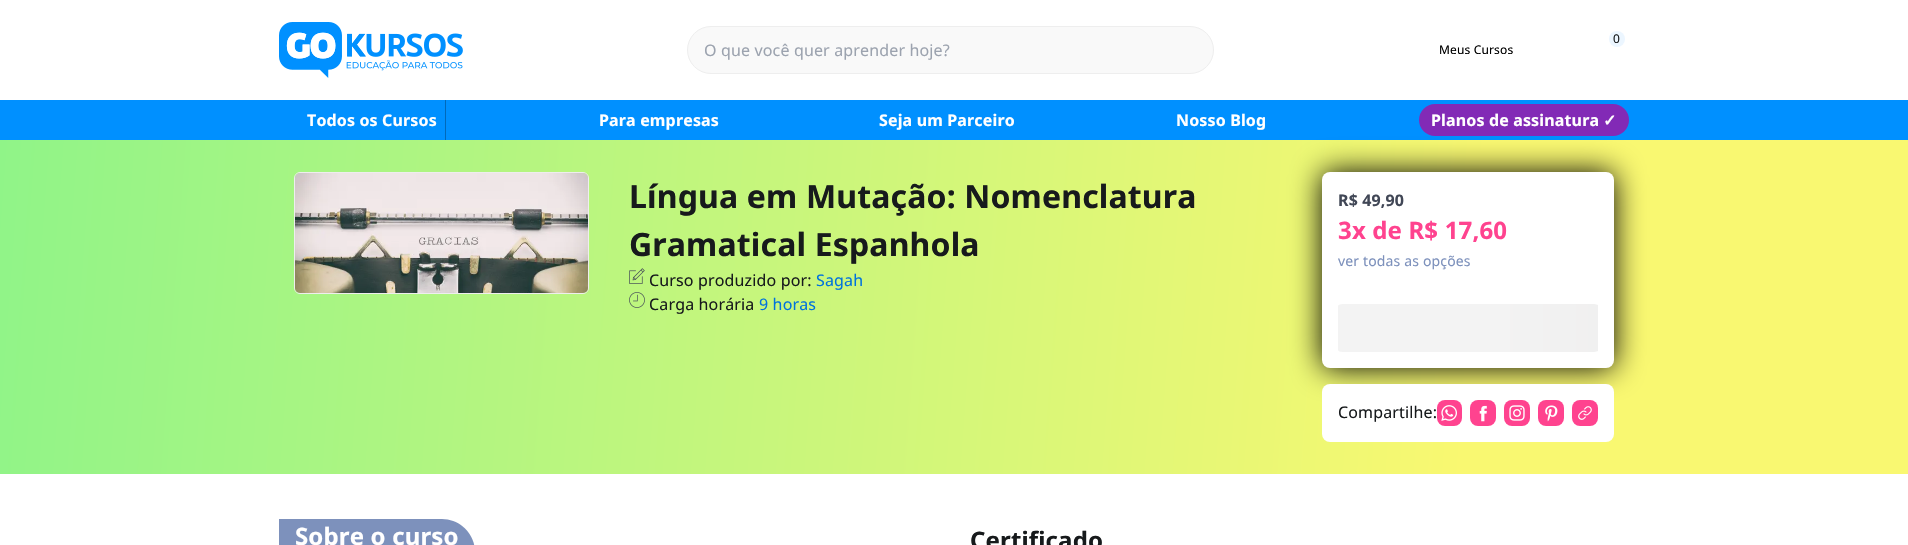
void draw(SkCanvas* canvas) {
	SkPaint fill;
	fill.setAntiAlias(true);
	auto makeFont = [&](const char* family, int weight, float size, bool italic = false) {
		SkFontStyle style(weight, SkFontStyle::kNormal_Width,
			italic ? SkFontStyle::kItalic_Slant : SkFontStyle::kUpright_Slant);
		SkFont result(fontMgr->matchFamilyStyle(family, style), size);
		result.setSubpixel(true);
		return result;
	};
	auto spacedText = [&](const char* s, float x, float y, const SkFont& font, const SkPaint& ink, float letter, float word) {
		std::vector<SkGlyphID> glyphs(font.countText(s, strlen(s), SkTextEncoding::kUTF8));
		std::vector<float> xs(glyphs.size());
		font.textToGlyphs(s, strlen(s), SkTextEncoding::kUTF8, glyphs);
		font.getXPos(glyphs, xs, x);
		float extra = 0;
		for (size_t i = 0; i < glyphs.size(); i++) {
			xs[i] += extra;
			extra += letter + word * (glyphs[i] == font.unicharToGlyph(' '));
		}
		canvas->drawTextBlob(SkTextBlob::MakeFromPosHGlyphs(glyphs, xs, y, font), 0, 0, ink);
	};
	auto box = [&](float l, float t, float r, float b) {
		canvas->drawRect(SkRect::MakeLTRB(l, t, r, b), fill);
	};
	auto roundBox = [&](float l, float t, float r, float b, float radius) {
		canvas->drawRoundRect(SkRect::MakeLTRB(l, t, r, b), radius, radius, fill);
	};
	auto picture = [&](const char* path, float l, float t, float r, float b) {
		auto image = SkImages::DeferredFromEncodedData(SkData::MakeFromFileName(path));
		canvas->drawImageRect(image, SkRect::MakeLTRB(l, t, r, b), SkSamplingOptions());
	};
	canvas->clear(0xFFFFFFFF);
	picture("image0.png", 279, 22, 463, 78);
	fill.setColor(0xFFF9F9F9);
	canvas->drawRoundRect(SkRect::MakeLTRB(687.5f, 26.5f, 1213.5f, 73.5f), 23.5f, 23.5f, fill);
	fill.setStyle(SkPaint::kStroke_Style);
	fill.setStrokeWidth(1);
	fill.setColor(0xFFEEEEEE);
	canvas->drawRoundRect(SkRect::MakeLTRB(687.5f, 26.5f, 1213.5f, 73.5f), 23.5f, 23.5f, fill);
	fill.setStyle(SkPaint::kFill_Style);
	fill.setColor(0xFFECF6FF);
	canvas->drawCircle(1617, 39, 8, fill);
	fill.setColor(0xFF0090FF);
	box(0, 100, 1908, 140);
	fill.setColor(0xFF0069BA);
	box(445, 100, 446, 140);
	{
		const SkColor colors[] = {0xFF90F488, 0xFFF9F871};
		const float stops[] = {0, 0.77f};
		const SkPoint ends[] = {{-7.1f, 235}, {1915, 379}};
		fill.setShader(SkGradientShader::MakeLinear(ends, colors, stops, 2, SkTileMode::kClamp));
		fill.setAlpha(255);
	}
	box(0, 140, 1908, 474);
	fill.setShader(nullptr);
	fill.setColor(0xFF000000);
	fill.setMaskFilter(SkMaskFilter::MakeBlur(kNormal_SkBlurStyle, 15));
	canvas->drawRoundRect(SkRect::MakeLTRB(1322, 172, 1614, 368), 8, 8, fill);
	fill.setMaskFilter(nullptr);
	fill.setColor(0xFF822AB6);
	roundBox(1419, 104, 1629, 136, 16);
	fill.setStyle(SkPaint::kStroke_Style);
	fill.setColor(0xFFEEEEEE);
	canvas->drawRoundRect(SkRect::MakeLTRB(294.5f, 172.5f, 588.5f, 293.5f), 5.5f, 5.5f, fill);
	picture("image1.png", 295, 173, 588, 293);
	picture("image2.png", 629, 268, 645, 284);
	picture("image3.png", 629, 292, 645, 308);
	fill.setStyle(SkPaint::kFill_Style);
	fill.setColor(0xFFFFFFFF);
	roundBox(1322, 172, 1614, 368, 8);
	{
		const SkColor colors[] = {0xFFF3F3F3, 0xFFECEBEB, 0xFFF3F3F3};
		const float stops[] = {0.23f, 0.62f, 1};
		const SkPoint ends[] = {{1338, 304}, {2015, 304}};
		fill.setShader(SkGradientShader::MakeLinear(ends, colors, stops, 3, SkTileMode::kClamp));
		fill.setAlpha(255);
	}
	canvas->drawPath(SkPathBuilder().moveTo(1343, 304).cubicTo(1340, 304, 1338, 305, 1338, 306).lineTo(1338, 350).cubicTo(1338, 351, 1340, 352, 1343, 352).lineTo(1594, 352).cubicTo(1596, 352, 1597, 351, 1598, 351).lineTo(1598, 305).cubicTo(1597, 305, 1596, 304, 1594, 304).close().detach(), fill);
	fill.setShader(nullptr);
	fill.setColor(0xFFFFFFFF);
	roundBox(1322, 384, 1614, 442, 8);
	fill.setColor(0xFFFF438F);
	roundBox(1437, 400, 1462, 426, 8);
	picture("image4.png", 1441, 405, 1457, 421);
	roundBox(1470, 400, 1496, 426, 8);
	picture("image5.png", 1479, 405, 1487, 422);
	roundBox(1504, 400, 1530, 426, 8);
	picture("image6.png", 1509, 405, 1525, 421);
	roundBox(1538, 400, 1564, 426, 8);
	picture("image7.png", 1545, 405, 1558, 422);
	roundBox(1572, 400, 1598, 426, 8);
	picture("image8.png", 1578, 406, 1592, 420);
	fill.setColor(0xFF7D91BC);
	canvas->drawPath(SkPathBuilder().moveTo(279, 519).lineTo(442, 519).cubicTo(460, 519, 475, 534, 475, 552).lineTo(279, 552).close().detach(), fill);
	auto font1 = makeFont("Noto Sans", 400, 16);
	fill.setColor(0xFF9CA3AF);
	spacedText("O que você quer aprender hoje?", 704, 56, font1, fill, 0.15f, 0);
	auto font2 = makeFont("Noto Sans", 400, 12);
	fill.setColor(0xFF171A1C);
	spacedText("0", 1613, 43, font2, fill, 0.15f, 0);
	fill.setColor(0xFF000000);
	spacedText("Meus Cursos", 1439, 54, font2, fill, 0.15f, 0);
	auto font3 = makeFont("Noto Sans", 700, 16);
	fill.setColor(0xFFFFFFFF);
	spacedText("Todos os Cursos", 307, 126, font3, fill, 0.15f, 0);
	spacedText("Para empresas", 599, 126, font3, fill, 0.15f, 0);
	spacedText("Seja um Parceiro", 879, 126, font3, fill, 0.15f, 0);
	spacedText("Nosso Blog", 1176, 126, font3, fill, 0.15f, 0);
	spacedText("Planos de assinatura", 1431, 126, font3, fill, 0.15f, 0);
	auto font4 = makeFont("DejaVu Sans", 700, 16);
	spacedText("✓", 1603, 126, font4, fill, 0.15f, 0);
	auto font5 = makeFont("Noto Sans", 700, 32);
	fill.setColor(0xFF171A1C);
	spacedText("Língua em Mutação: Nomenclatura", 629, 208, font5, fill, 0.15f, 0);
	spacedText("Gramatical Espanhola", 629, 256, font5, fill, 0.15f, 0);
	spacedText("Curso produzido por:", 649, 286, font1, fill, 0.15f, 0);
	fill.setColor(0xFF0072DD);
	spacedText("Sagah", 816, 286, font1, fill, 0.15f, 0);
	fill.setColor(0xFF171A1C);
	spacedText("Carga horária", 649, 310, font1, fill, 0.15f, 0);
	fill.setColor(0xFF0072DD);
	spacedText("9 horas", 759, 310, font1, fill, 0.15f, 0);
	fill.setColor(0xFF414756);
	spacedText("R$ 49,90", 1338, 206, font3, fill, 0.15f, 0);
	auto font6 = makeFont("Noto Sans", 700, 24);
	fill.setColor(0xFFFF438F);
	spacedText("3x de R$ 17,60", 1338, 239, font6, fill, 0.15f, 0);
	auto font7 = makeFont("Noto Sans", 400, 14);
	fill.setColor(0xFF7D91BC);
	spacedText("ver todas as opções", 1338, 266, font7, fill, 0.15f, 0);
	fill.setColor(0xFF171A1C);
	spacedText("Compartilhe:", 1338, 418, font1, fill, 0.15f, 0);
	fill.setColor(0xFFFFFFFF);
	spacedText("Sobre o curso", 295, 545, font6, fill, 0.15f, 0);
	fill.setColor(0xFF171A1C);
	spacedText("Certificado", 970, 549, font6, fill, 0.15f, 0);
}
